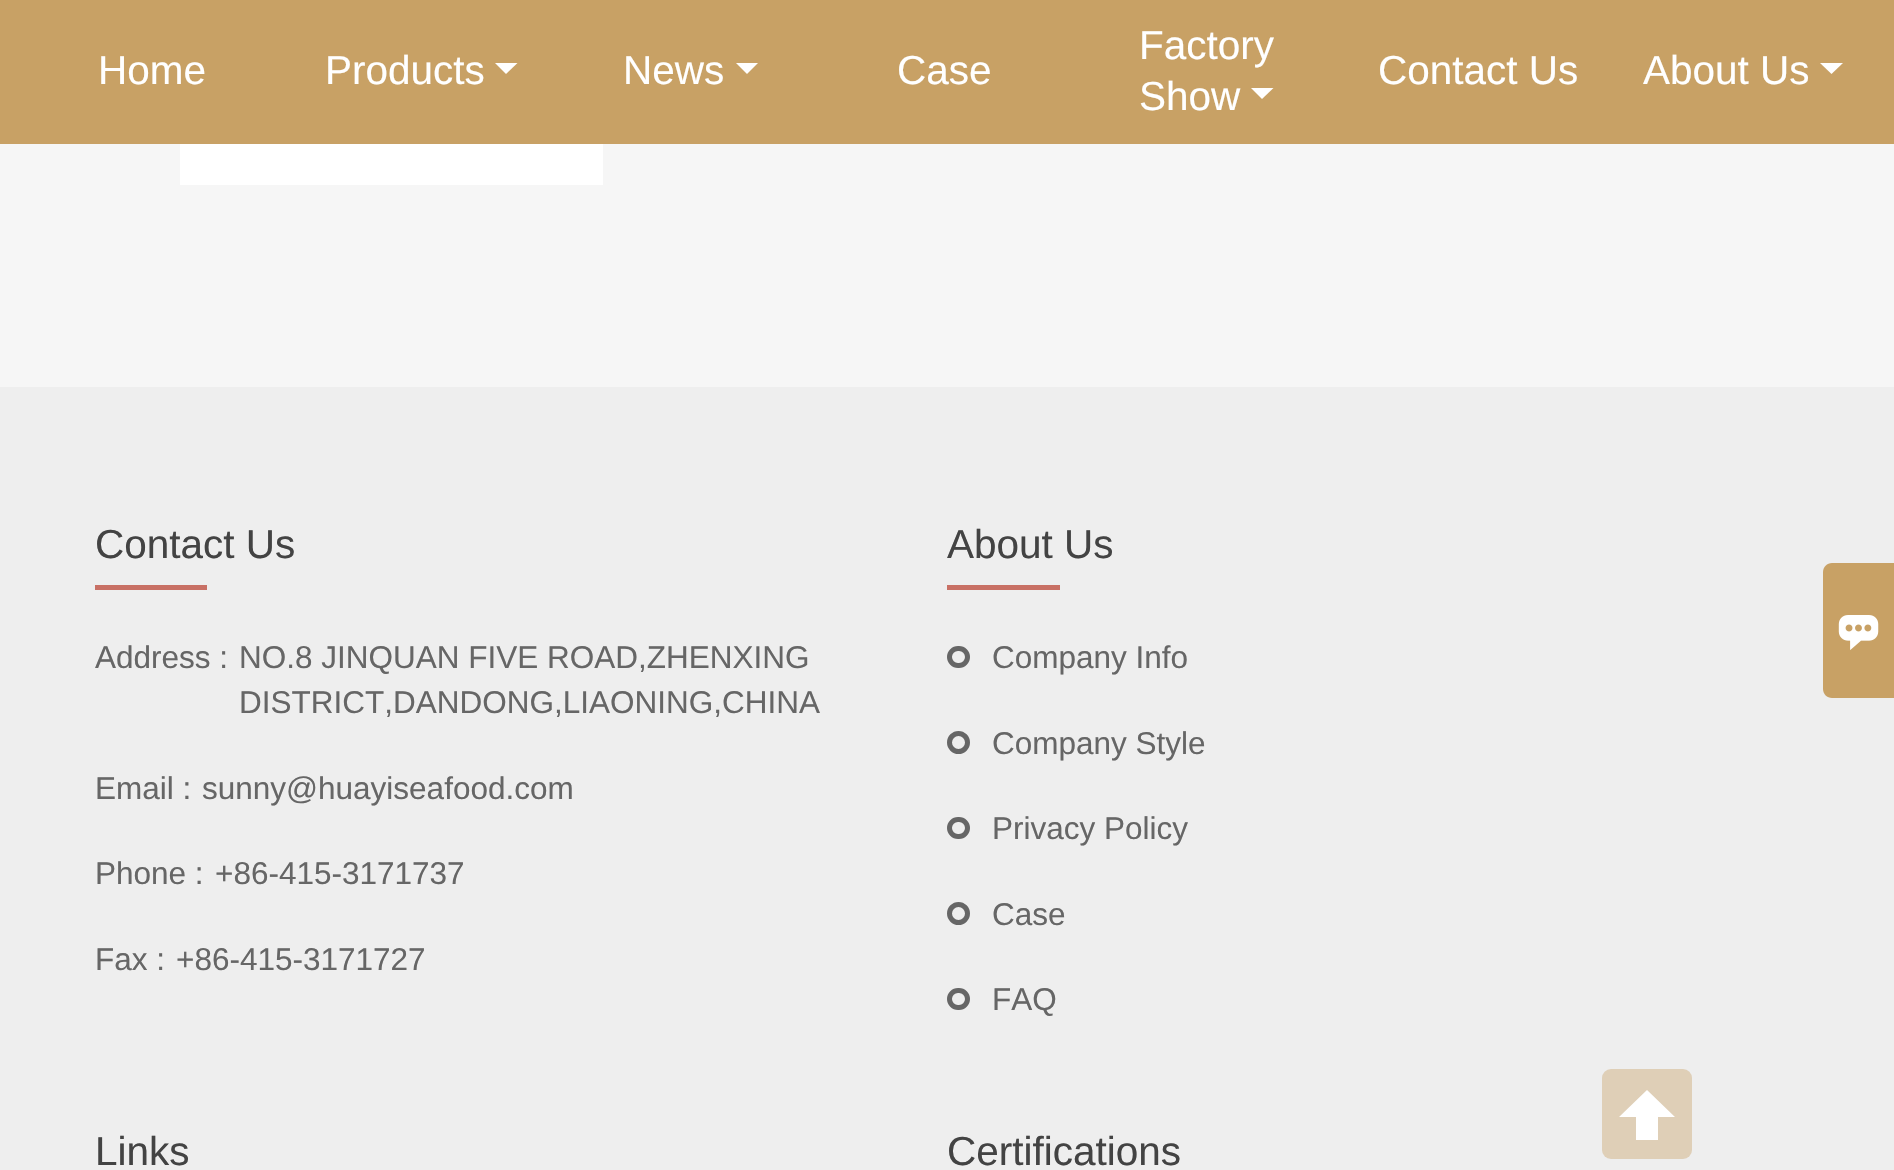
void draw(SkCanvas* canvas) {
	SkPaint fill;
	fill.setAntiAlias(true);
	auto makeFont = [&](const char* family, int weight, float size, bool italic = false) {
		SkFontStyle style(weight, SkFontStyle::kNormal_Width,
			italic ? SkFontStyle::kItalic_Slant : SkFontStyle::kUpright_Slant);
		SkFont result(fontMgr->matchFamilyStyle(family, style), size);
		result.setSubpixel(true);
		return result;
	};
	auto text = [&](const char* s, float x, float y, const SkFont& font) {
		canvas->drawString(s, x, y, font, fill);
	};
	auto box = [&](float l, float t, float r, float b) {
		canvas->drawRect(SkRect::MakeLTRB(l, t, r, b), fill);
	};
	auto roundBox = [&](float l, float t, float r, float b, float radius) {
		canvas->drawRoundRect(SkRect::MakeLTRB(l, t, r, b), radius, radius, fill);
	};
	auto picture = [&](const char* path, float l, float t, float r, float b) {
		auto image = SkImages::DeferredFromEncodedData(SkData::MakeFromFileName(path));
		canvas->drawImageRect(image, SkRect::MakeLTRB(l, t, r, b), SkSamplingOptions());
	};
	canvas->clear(0xFFF6F6F6);
	fill.setColor(0xFFC8A165);
	box(0, 0, 1894, 144);
	fill.setColor(0xFFFFFFFF);
	canvas->drawPath(SkPathBuilder().moveTo(495, 63).lineTo(517.5f, 63).lineTo(506, 74).close().detach(), fill);
	canvas->drawPath(SkPathBuilder().moveTo(736, 63).lineTo(758, 63).lineTo(747, 74).close().detach(), fill);
	canvas->drawPath(SkPathBuilder().moveTo(1251, 88).lineTo(1273.5f, 88).lineTo(1262, 99).close().detach(), fill);
	canvas->drawPath(SkPathBuilder().moveTo(1820, 63).lineTo(1843, 63).lineTo(1831.5f, 74).close().detach(), fill);
	box(180, 144, 603, 185);
	fill.setColor(0xFFEEEEEE);
	box(0, 387, 1894, 1170);
	fill.setColor(0xFFC87065);
	box(95, 585, 207, 590);
	box(947, 585, 1060, 590);
	fill.setStyle(SkPaint::kStroke_Style);
	fill.setStrokeWidth(5);
	fill.setColor(0xFF666666);
	canvas->drawRoundRect(SkRect::MakeLTRB(949.5f, 648.5f, 967.5f, 665.5f), 8.5f, 8.5f, fill);
	canvas->drawCircle(958.5f, 742.5f, 9, fill);
	canvas->drawRoundRect(SkRect::MakeLTRB(949.5f, 819.5f, 967.5f, 836.5f), 8.5f, 8.5f, fill);
	canvas->drawCircle(958.5f, 913.5f, 9, fill);
	canvas->drawRoundRect(SkRect::MakeLTRB(949.5f, 990.5f, 967.5f, 1007.5f), 8.5f, 8.5f, fill);
	fill.setStyle(SkPaint::kFill_Style);
	fill.setColor(0xFFDFCFB7);
	roundBox(1602, 1069, 1692, 1159, 9);
	fill.setColor(0xFFFFFFFF);
	canvas->drawPath(SkPathBuilder().moveTo(1675, 1117).lineTo(1647, 1090).lineTo(1619, 1117).lineTo(1636, 1117).lineTo(1636, 1140).lineTo(1658, 1140).lineTo(1658, 1117).close().detach(), fill);
	fill.setColor(0xFFC8A165);
	canvas->drawPath(SkPathBuilder().moveTo(1832, 563).lineTo(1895, 563).lineTo(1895, 698).lineTo(1832, 698).cubicTo(1827, 698, 1823, 694, 1823, 689).lineTo(1823, 572).cubicTo(1823, 567, 1827, 563, 1832, 563).close().detach(), fill);
	picture("image0.png", 1838, 615, 1879, 650);
	auto font1 = makeFont("Liberation Sans", 400, 40.5f);
	fill.setColor(0xFFFFFFFF);
	text("Home", 98, 84, font1);
	text("Products", 325, 84, font1);
	text("News", 623, 84, font1);
	text("Case", 897, 84, font1);
	text("Factory", 1139, 59, font1);
	text("Show", 1139, 110, font1);
	text("Contact Us", 1378, 84, font1);
	text("About Us", 1643, 84, font1);
	fill.setColor(0xFF434343);
	text("Contact Us", 95, 558, font1);
	auto font2 = makeFont("Liberation Sans", 400, 31.5f);
	fill.setColor(0xFF666666);
	text("Address :", 95, 668, font2);
	text("NO.8 JINQUAN FIVE ROAD,ZHENXING", 239, 668, font2);
	text("DISTRICT,DANDONG,LIAONING,CHINA", 239, 713, font2);
	text("Email :", 95, 799, font2);
	text("sunny@huayiseafood.com", 202, 799, font2);
	text("Phone :", 95, 884, font2);
	text("+86-415-3171737", 215, 884, font2);
	text("Fax :", 95, 970, font2);
	text("+86-415-3171727", 176, 970, font2);
	fill.setColor(0xFF434343);
	text("About Us", 947, 558, font1);
	fill.setColor(0xFF666666);
	text("Company Info", 992, 668, font2);
	text("Company Style", 992, 754, font2);
	text("Privacy Policy", 992, 839, font2);
	text("Case", 992, 925, font2);
	text("FAQ", 992, 1010, font2);
	fill.setColor(0xFF434343);
	text("Links", 95, 1165, font1);
	text("Certifications", 947, 1165, font1);
}
